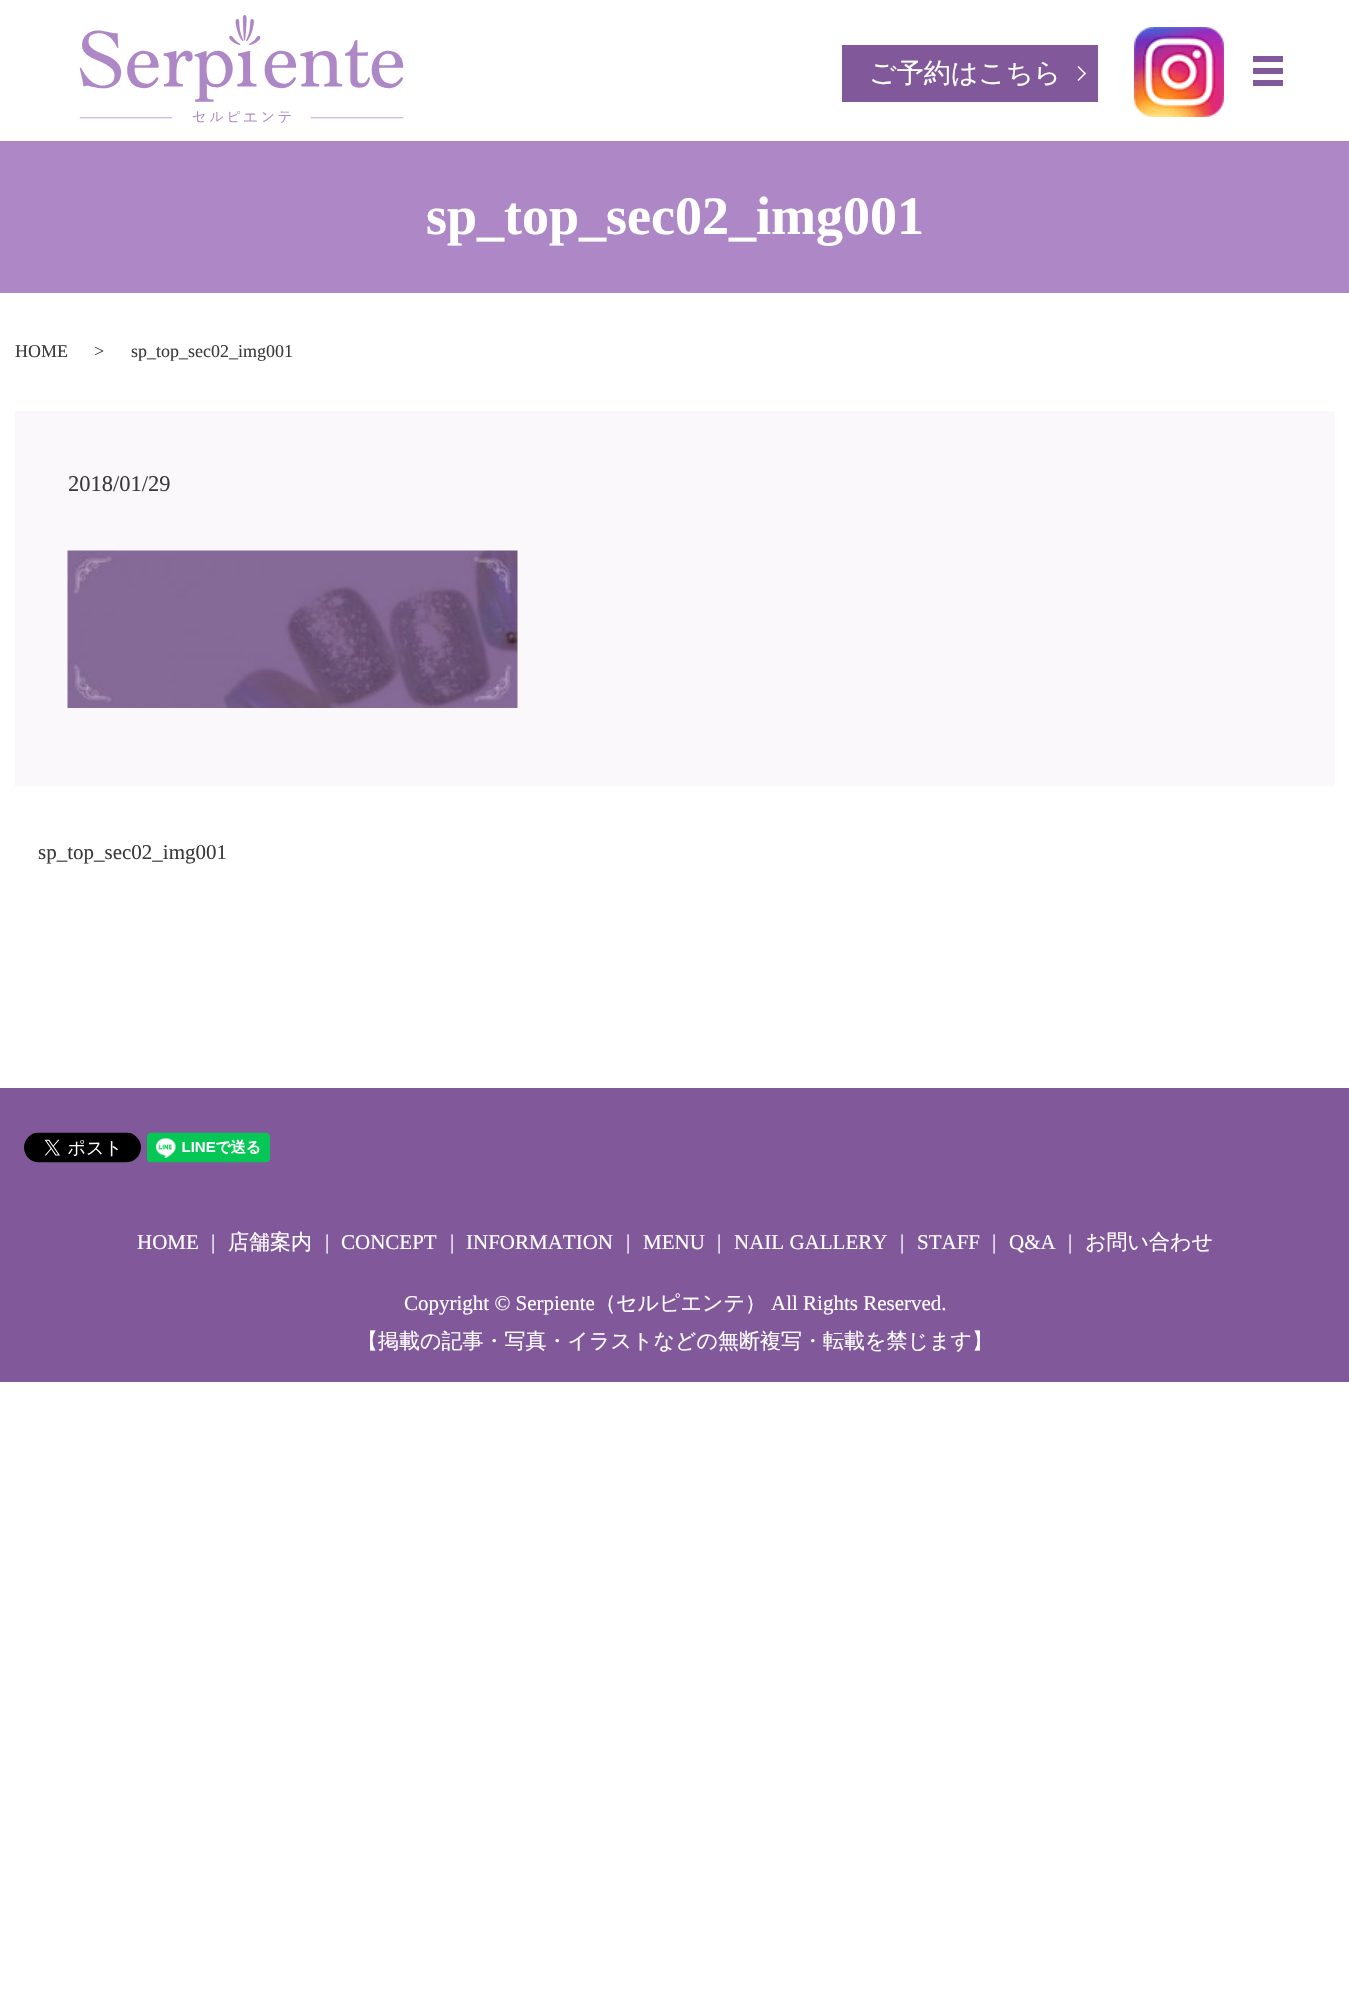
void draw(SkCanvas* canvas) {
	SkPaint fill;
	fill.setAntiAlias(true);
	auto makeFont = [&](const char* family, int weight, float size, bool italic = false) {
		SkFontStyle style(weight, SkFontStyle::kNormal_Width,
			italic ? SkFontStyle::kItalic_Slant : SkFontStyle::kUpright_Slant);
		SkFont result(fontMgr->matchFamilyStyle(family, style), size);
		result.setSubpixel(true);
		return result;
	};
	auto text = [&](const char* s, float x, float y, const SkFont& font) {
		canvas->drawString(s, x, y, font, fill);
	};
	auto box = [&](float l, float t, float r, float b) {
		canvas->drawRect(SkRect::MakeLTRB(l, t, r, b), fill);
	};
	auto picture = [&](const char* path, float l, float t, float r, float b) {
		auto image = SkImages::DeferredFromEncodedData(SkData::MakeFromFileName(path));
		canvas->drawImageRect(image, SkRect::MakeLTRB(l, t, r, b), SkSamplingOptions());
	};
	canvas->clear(0xFFFFFFFF);
	picture("image0.png", 79, 15, 404, 123);
	fill.setColor(0xFF81599A);
	box(842, 45, 1098, 102);
	fill.setColor(0xFFFFFFFF);
	canvas->drawPath(SkPathBuilder().moveTo(1078.5f, 66).lineTo(1086, 73.5f).lineTo(1085, 74.5f).lineTo(1077.5f, 67).close().detach(), fill);
	canvas->drawPath(SkPathBuilder().moveTo(1085, 72.5f).lineTo(1086, 73.5f).lineTo(1078.5f, 81).lineTo(1077.5f, 80).close().detach(), fill);
	picture("image1.png", 1134, 27, 1224, 117);
	fill.setColor(0xFF81599A);
	box(1253, 56, 1283, 62);
	box(1253, 68, 1283, 74);
	box(1253, 80, 1283, 86);
	fill.setColor(0xFFAE87C7);
	box(0, 141, 1349, 293);
	fill.setColor(0xFFFAF8FB);
	box(15, 411, 1335, 786);
	picture("image2.png", 67, 550, 518, 708);
	fill.setColor(0xFF81599A);
	box(0, 1088, 1349, 1382);
	picture("image3.png", 24, 1132, 141, 1163);
	picture("image4.png", 147, 1132, 270, 1163);
	auto font1 = makeFont("WenQuanYi Zen Hei", 500, 27);
	fill.setColor(0xFFFFFFFF);
	text("ご予約はこちら", 869, 82, font1);
	auto font2 = makeFont("Liberation Serif", 700, 54);
	text("sp_top_sec02_img001", 426, 234, font2);
	auto font3 = makeFont("Liberation Serif", 400, 18);
	fill.setColor(0xFF3B3B3B);
	text("HOME", 15, 357, font3);
	text(">", 94, 357, font3);
	text("sp_top_sec02_img001", 131, 357, font3);
	auto font4 = makeFont("Liberation Serif", 400, 22.5f);
	text("2018/01/29", 68, 491, font4);
	auto font5 = makeFont("Liberation Serif", 400, 21);
	text("sp_top_sec02_img001", 38, 859, font5);
	fill.setColor(0xFFFFFFFF);
	text("HOME", 137, 1249, font5);
	text("|", 211, 1249, font5);
	auto font6 = makeFont("WenQuanYi Zen Hei", 500, 21);
	text("店舗案内", 228, 1249, font6);
	text("|", 325, 1249, font5);
	text("CONCEPT", 341, 1249, font5);
	text("|", 450, 1249, font5);
	text("INFORMATION", 466, 1249, font5);
	text("|", 626, 1249, font5);
	text("MENU", 643, 1249, font5);
	text("|", 717, 1249, font5);
	text("NAIL GALLERY", 734, 1249, font5);
	text("|", 900, 1249, font5);
	text("STAFF", 917, 1249, font5);
	text("|", 992, 1249, font5);
	text("Q&A", 1009, 1249, font5);
	text("|", 1068, 1249, font5);
	text("お問い合わせ", 1085, 1249, font6);
	text("Copyright © Serpiente", 404, 1310, font5);
	text("（セルピエンテ）", 595, 1310, font6);
	text("All Rights Reserved.", 771, 1310, font5);
	text("【掲載の記事・写真・イラストなどの無断複写・転載を禁じます】", 357, 1348, font6);
}
